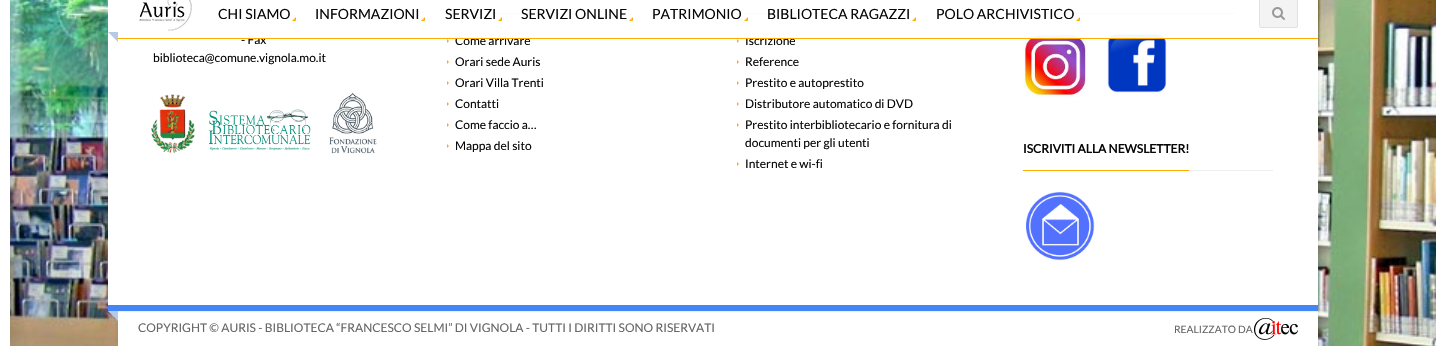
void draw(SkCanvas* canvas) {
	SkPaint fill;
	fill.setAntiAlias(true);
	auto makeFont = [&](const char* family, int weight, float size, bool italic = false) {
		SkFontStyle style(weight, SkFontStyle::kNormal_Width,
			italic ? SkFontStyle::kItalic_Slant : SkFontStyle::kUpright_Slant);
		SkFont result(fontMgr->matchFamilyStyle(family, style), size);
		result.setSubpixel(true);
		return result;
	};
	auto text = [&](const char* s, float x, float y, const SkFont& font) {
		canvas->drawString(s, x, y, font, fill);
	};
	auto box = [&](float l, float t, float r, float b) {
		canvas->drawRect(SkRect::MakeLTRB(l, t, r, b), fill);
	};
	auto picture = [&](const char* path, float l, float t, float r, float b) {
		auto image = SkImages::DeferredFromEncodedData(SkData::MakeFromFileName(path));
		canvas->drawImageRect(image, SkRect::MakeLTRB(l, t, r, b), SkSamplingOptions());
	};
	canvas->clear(0xFFFFFFFF);
	picture("image0.png", 10, 0, 1436, 346);
	fill.setColor(0x1A000000);
	fill.setMaskFilter(SkMaskFilter::MakeBlur(kNormal_SkBlurStyle, 3));
	canvas->drawRect(SkRect::MakeLTRB(118, -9, 1318, 346), fill);
	fill.setMaskFilter(nullptr);
	fill.setColor(0xFFFFFFFF);
	box(118, 312, 1318, 346);
	fill.setColor(0x40000000);
	fill.setMaskFilter(SkMaskFilter::MakeBlur(kNormal_SkBlurStyle, 12.5f));
	canvas->drawRect(SkRect::MakeLTRB(-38, 0, 10, 346), fill);
	fill.setMaskFilter(nullptr);
	fill.setColor(0xFFFFFFFF);
	box(0, 0, 10, 346);
	box(108, 0, 1318, 305);
	picture("image1.png", 139, 0, 192, 31);
	fill.setColor(0xFFB7C9E8);
	canvas->drawPath(SkPathBuilder().moveTo(108, 32).lineTo(118, 32).lineTo(118, 42).close().detach(), fill);
	fill.setColor(0xFFF3F3F3);
	canvas->drawRoundRect(SkRect::MakeLTRB(1259.5f, -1.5f, 1297.5f, 27.5f), 1.5f, 1.5f, fill);
	fill.setStyle(SkPaint::kStroke_Style);
	fill.setStrokeWidth(1);
	fill.setColor(0xFFE1E1E1);
	canvas->drawRoundRect(SkRect::MakeLTRB(1259.5f, -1.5f, 1297.5f, 27.5f), 1.5f, 1.5f, fill);
	picture("image2.png", 1272, 7, 1285, 20);
	fill.setStyle(SkPaint::kFill_Style);
	fill.setColor(0xFF4285F4);
	box(108, 305, 1318, 311);
	picture("image3.png", 151, 94, 195, 154);
	picture("image4.png", 208, 109, 311, 151);
	picture("image5.png", 329, 92, 377, 154);
	fill.setColor(0xFFEEEEEE);
	box(564, 13, 693, 14);
	fill.setColor(0xFFFFAC00);
	box(443, 13, 564, 14);
	canvas->drawPath(SkPathBuilder().moveTo(447, 43).lineTo(447, 39).lineTo(449, 41).close().detach(), fill);
	canvas->drawPath(SkPathBuilder().moveTo(447, 64).lineTo(447, 60).lineTo(449, 62).close().detach(), fill);
	canvas->drawPath(SkPathBuilder().moveTo(447, 85).lineTo(447, 81).lineTo(449, 83).close().detach(), fill);
	canvas->drawPath(SkPathBuilder().moveTo(447, 106).lineTo(447, 102).lineTo(449, 104).close().detach(), fill);
	canvas->drawPath(SkPathBuilder().moveTo(447, 127).lineTo(447, 123).lineTo(449, 125).close().detach(), fill);
	canvas->drawPath(SkPathBuilder().moveTo(447, 148).lineTo(447, 144).lineTo(449, 146).close().detach(), fill);
	fill.setColor(0xFFEEEEEE);
	box(848, 13, 983, 14);
	fill.setColor(0xFFFFAC00);
	box(733, 13, 848, 14);
	canvas->drawPath(SkPathBuilder().moveTo(737, 43).lineTo(737, 39).lineTo(739, 41).close().detach(), fill);
	canvas->drawPath(SkPathBuilder().moveTo(737, 64).lineTo(737, 60).lineTo(739, 62).close().detach(), fill);
	canvas->drawPath(SkPathBuilder().moveTo(737, 85).lineTo(737, 81).lineTo(739, 83).close().detach(), fill);
	canvas->drawPath(SkPathBuilder().moveTo(737, 106).lineTo(737, 102).lineTo(739, 104).close().detach(), fill);
	canvas->drawPath(SkPathBuilder().moveTo(737, 127).lineTo(737, 123).lineTo(739, 125).close().detach(), fill);
	canvas->drawPath(SkPathBuilder().moveTo(737, 166).lineTo(737, 162).lineTo(739, 164).close().detach(), fill);
	fill.setColor(0xFFEEEEEE);
	box(1236, 13, 1259, 14);
	fill.setColor(0xFFFFAC00);
	box(1023, 13, 1236, 14);
	picture("image6.png", 1023, 32, 1088, 98);
	picture("image7.png", 1107, 33, 1167, 93);
	fill.setColor(0xFFEEEEEE);
	box(1189, 170, 1273, 171);
	fill.setColor(0xFFFFAC00);
	box(1023, 170, 1189, 171);
	picture("image8.png", 1025, 192, 1095, 261);
	fill.setColor(0xFFB7C9E8);
	canvas->drawPath(SkPathBuilder().moveTo(108, 311).lineTo(118, 311).lineTo(118, 321).close().detach(), fill);
	fill.setColor(0xFFEEEEEE);
	box(118, 311, 1318, 312);
	picture("image9.png", 1254, 318, 1298, 340);
	auto font1 = makeFont("Lato", 400, 12);
	fill.setColor(0xFF070707);
	text("- Fax", 241, 44, font1);
	text("biblioteca@comune.vignola.mo.it", 153, 62, font1);
	text("Come arrivare", 455, 45, font1);
	text("Orari sede Auris", 455, 66, font1);
	text("Orari Villa Trenti", 455, 87, font1);
	text("Contatti", 455, 108, font1);
	text("Come faccio a…", 455, 129, font1);
	text("Mappa del sito", 455, 150, font1);
	text("Iscrizione", 745, 45, font1);
	fill.setColor(0xF2FFFFFF);
	box(248, 13, 1259, 38);
	fill.setColor(0xFFFFAC00);
	canvas->drawPath(SkPathBuilder().moveTo(1080, 17).lineTo(1080, 21).lineTo(1078, 19).close().detach(), fill);
	canvas->drawPath(SkPathBuilder().moveTo(1080, 21).lineTo(1076, 21).lineTo(1078, 19).close().detach(), fill);
	auto font2 = makeFont("Lato", 400, 14);
	fill.setColor(0xFF070707);
	text("POLO ARCHIVISTICO", 936, 19, font2);
	fill.setColor(0xFFFFAC00);
	canvas->drawPath(SkPathBuilder().moveTo(916, 17).lineTo(916, 21).lineTo(914, 19).close().detach(), fill);
	canvas->drawPath(SkPathBuilder().moveTo(916, 21).lineTo(912, 21).lineTo(914, 19).close().detach(), fill);
	fill.setColor(0xFF070707);
	text("BIBLIOTECA RAGAZZI", 767, 19, font2);
	fill.setColor(0xFFFFAC00);
	canvas->drawPath(SkPathBuilder().moveTo(748, 17).lineTo(748, 21).lineTo(746, 19).close().detach(), fill);
	canvas->drawPath(SkPathBuilder().moveTo(748, 21).lineTo(744, 21).lineTo(746, 19).close().detach(), fill);
	fill.setColor(0xFF070707);
	text("PATRIMONIO", 652, 19, font2);
	fill.setColor(0xFFFFAC00);
	canvas->drawPath(SkPathBuilder().moveTo(633, 17).lineTo(633, 21).lineTo(631, 19).close().detach(), fill);
	canvas->drawPath(SkPathBuilder().moveTo(633, 21).lineTo(629, 21).lineTo(631, 19).close().detach(), fill);
	fill.setColor(0xFF070707);
	text("SERVIZI ONLINE", 521, 19, font2);
	fill.setColor(0xFFFFAC00);
	canvas->drawPath(SkPathBuilder().moveTo(502, 17).lineTo(502, 21).lineTo(500, 19).close().detach(), fill);
	canvas->drawPath(SkPathBuilder().moveTo(502, 21).lineTo(498, 21).lineTo(500, 19).close().detach(), fill);
	fill.setColor(0xFF070707);
	text("SERVIZI", 445, 19, font2);
	fill.setColor(0xFFFFAC00);
	canvas->drawPath(SkPathBuilder().moveTo(425, 17).lineTo(425, 21).lineTo(423, 19).close().detach(), fill);
	canvas->drawPath(SkPathBuilder().moveTo(425, 21).lineTo(421, 21).lineTo(423, 19).close().detach(), fill);
	fill.setColor(0xFF070707);
	text("INFORMAZIONI", 315, 19, font2);
	fill.setColor(0xFFFFAC00);
	canvas->drawPath(SkPathBuilder().moveTo(296, 17).lineTo(296, 21).lineTo(294, 19).close().detach(), fill);
	canvas->drawPath(SkPathBuilder().moveTo(296, 21).lineTo(292, 21).lineTo(294, 19).close().detach(), fill);
	fill.setColor(0xFF070707);
	text("CHI SIAMO", 218, 19, font2);
	fill.setColor(0xFFFFAC00);
	box(118, 38, 1318, 39);
	fill.setColor(0xFF070707);
	text("Reference", 745, 66, font1);
	text("Prestito e autoprestito", 745, 87, font1);
	text("Distributore automatico di DVD", 745, 108, font1);
	text("Prestito interbibliotecario e fornitura di", 745, 129, font1);
	text("documenti per gli utenti", 745, 147, font1);
	text("Internet e wi-fi", 745, 168, font1);
	auto font3 = makeFont("Lato", 700, 12);
	text("ISCRIVITI ALLA NEWSLETTER!", 1023, 153, font3);
	fill.setColor(0xFF666666);
	text("COPYRIGHT © AURIS - BIBLIOTECA “FRANCESCO SELMI” DI VIGNOLA - TUTTI I DIRITTI SONO RISERVATI", 138, 332, font1);
	auto font4 = makeFont("Lato", 400, 10.25f);
	text("REALIZZATO DA", 1174, 333, font4);
}
